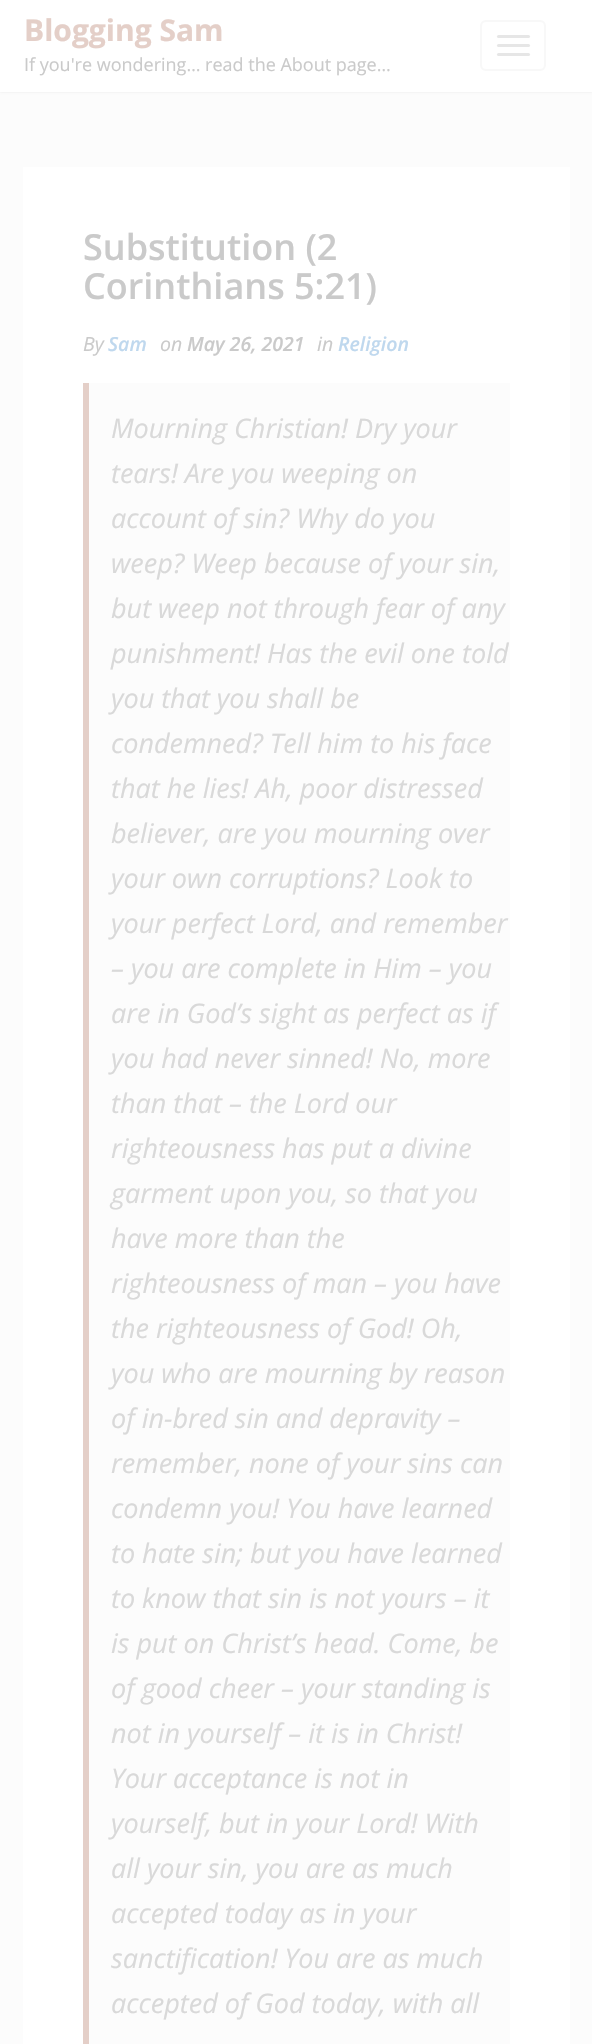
void draw(SkCanvas* canvas) {
	SkPaint fill;
	fill.setAntiAlias(true);
	auto makeFont = [&](const char* family, int weight, float size, bool italic = false) {
		SkFontStyle style(weight, SkFontStyle::kNormal_Width,
			italic ? SkFontStyle::kItalic_Slant : SkFontStyle::kUpright_Slant);
		SkFont result(fontMgr->matchFamilyStyle(family, style), size);
		result.setSubpixel(true);
		return result;
	};
	auto text = [&](const char* s, float x, float y, const SkFont& font) {
		canvas->drawString(s, x, y, font, fill);
	};
	auto box = [&](float l, float t, float r, float b) {
		canvas->drawRect(SkRect::MakeLTRB(l, t, r, b), fill);
	};
	auto roundBox = [&](float l, float t, float r, float b, float radius) {
		canvas->drawRoundRect(SkRect::MakeLTRB(l, t, r, b), radius, radius, fill);
	};
	canvas->clear(0xFFFCFCFC);
	fill.setColor(0xFFE9E9E9);
	fill.setMaskFilter(SkMaskFilter::MakeBlur(kNormal_SkBlurStyle, 1));
	canvas->drawRect(SkRect::MakeLTRB(0, 0, 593, 92), fill);
	fill.setMaskFilter(nullptr);
	fill.setColor(0xFFFFFFFF);
	box(0, 0, 592, 92);
	fill.setStyle(SkPaint::kStroke_Style);
	fill.setStrokeWidth(2);
	fill.setColor(0xFFF8F8F8);
	canvas->drawRoundRect(SkRect::MakeLTRB(481, 21, 545, 70), 5, 5, fill);
	fill.setStyle(SkPaint::kFill_Style);
	fill.setColor(0xFFE6E6E6);
	roundBox(497, 35, 530, 38, 1.5f);
	roundBox(497, 44, 530, 47, 1.5f);
	roundBox(497, 53, 530, 56, 1.5f);
	fill.setColor(0xFFFFFFFF);
	box(23, 167, 570, 2044);
	fill.setColor(0xFFFCFCFC);
	box(89, 383, 510, 2044);
	fill.setColor(0xFFE4CFC8);
	box(83, 383, 89, 2044);
	auto font1 = makeFont("Open Sans", 700, 30);
	text("Blogging Sam", 24, 41, font1);
	auto font2 = makeFont("Open Sans", 400, 18);
	fill.setColor(0xFFCACACA);
	text("If you're wondering… read the About page…", 24, 71, font2);
	auto font3 = makeFont("Open Sans", 600, 36);
	text("Substitution (2", 83, 260, font3);
	text("Corinthians 5:21)", 83, 299, font3);
	auto font4 = makeFont("Open Sans", 400, 19.5f, true);
	text("By", 83, 351, font4);
	auto font5 = makeFont("Open Sans", 600, 19.5f, true);
	fill.setColor(0xFFBFD8EE);
	text("Sam", 108, 351, font5);
	fill.setColor(0xFFCACACA);
	text("on", 160, 351, font4);
	text("May 26, 2021", 187, 351, font5);
	text("in", 317, 351, font4);
	fill.setColor(0xFFBFD8EE);
	text("Religion", 338, 351, font5);
	auto font6 = makeFont("Open Sans", 400, 27, true);
	fill.setColor(0xFFD9D9D9);
	text("Mourning Christian! Dry your", 111, 438, font6);
	text("tears! Are you weeping on", 111, 483, font6);
	text("account of sin? Why do you", 111, 528, font6);
	text("weep? Weep because of your sin,", 111, 573, font6);
	text("but weep not through fear of any", 111, 618, font6);
	text("punishment! Has the evil one told", 111, 663, font6);
	text("you that you shall be", 111, 708, font6);
	text("condemned? Tell him to his face", 111, 753, font6);
	text("that he lies! Ah, poor distressed", 111, 798, font6);
	text("believer, are you mourning over", 111, 843, font6);
	text("your own corruptions? Look to", 111, 888, font6);
	text("your perfect Lord, and remember", 111, 933, font6);
	text("– you are complete in Him – you", 111, 978, font6);
	text("are in God’s sight as perfect as if", 111, 1023, font6);
	text("you had never sinned! No, more", 111, 1068, font6);
	text("than that – the Lord our", 111, 1113, font6);
	text("righteousness has put a divine", 111, 1158, font6);
	text("garment upon you, so that you", 111, 1203, font6);
	text("have more than the", 111, 1248, font6);
	text("righteousness of man – you have", 111, 1293, font6);
	text("the righteousness of God! Oh,", 111, 1338, font6);
	text("you who are mourning by reason", 111, 1383, font6);
	text("of in-bred sin and depravity –", 111, 1428, font6);
	text("remember, none of your sins can", 111, 1473, font6);
	text("condemn you! You have learned", 111, 1518, font6);
	text("to hate sin; but you have learned", 111, 1563, font6);
	text("to know that sin is not yours – it", 111, 1608, font6);
	text("is put on Christ’s head. Come, be", 111, 1653, font6);
	text("of good cheer – your standing is", 111, 1698, font6);
	text("not in yourself – it is in Christ!", 111, 1743, font6);
	text("Your acceptance is not in", 111, 1788, font6);
	text("yourself, but in your Lord! With", 111, 1833, font6);
	text("all your sin, you are as much", 111, 1878, font6);
	text("accepted today as in your", 111, 1923, font6);
	text("sanctification! You are as much", 111, 1968, font6);
	text("accepted of God today, with all", 111, 2013, font6);
}
